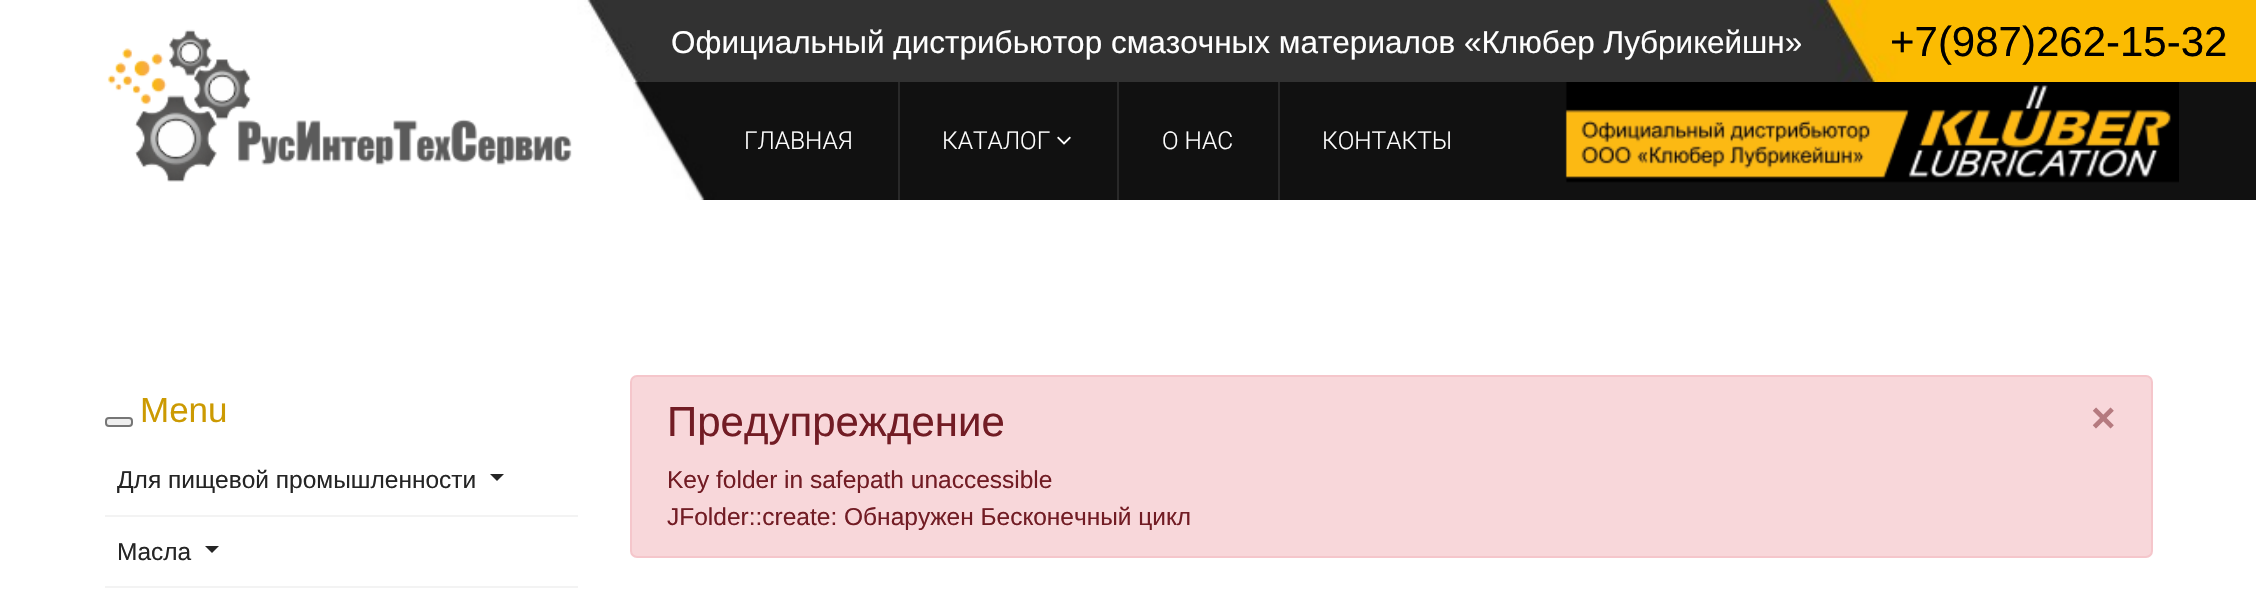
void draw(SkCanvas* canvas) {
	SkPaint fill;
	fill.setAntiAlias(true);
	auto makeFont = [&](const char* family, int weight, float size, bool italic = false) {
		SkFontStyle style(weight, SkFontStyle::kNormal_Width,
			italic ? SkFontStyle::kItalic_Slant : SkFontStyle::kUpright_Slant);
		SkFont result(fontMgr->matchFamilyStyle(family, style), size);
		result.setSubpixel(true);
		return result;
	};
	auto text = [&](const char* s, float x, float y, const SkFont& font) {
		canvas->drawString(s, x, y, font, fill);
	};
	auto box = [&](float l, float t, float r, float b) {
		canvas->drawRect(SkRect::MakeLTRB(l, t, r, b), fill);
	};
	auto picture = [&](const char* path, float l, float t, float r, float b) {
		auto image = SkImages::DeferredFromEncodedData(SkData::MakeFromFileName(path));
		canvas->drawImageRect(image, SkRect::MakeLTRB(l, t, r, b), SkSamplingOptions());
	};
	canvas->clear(0xFFFFFFFF);
	picture("image0.png", 0, 0, 2256, 82);
	picture("image1.png", 633, 82, 2256, 200);
	picture("image2.png", 107, 29, 572, 182);
	picture("image3.png", 1565, 82, 2179, 183);
	fill.setColor(0xFF292929);
	box(898, 82, 900, 200);
	box(1117, 82, 1119, 200);
	picture("image4.png", 1057, 136, 1071, 145);
	box(1278, 82, 1280, 200);
	fill.setColor(0xFFEFEFEF);
	canvas->drawRoundRect(SkRect::MakeLTRB(106, 418, 132, 426), 3, 3, fill);
	fill.setStyle(SkPaint::kStroke_Style);
	fill.setStrokeWidth(2);
	fill.setColor(0xFF767676);
	canvas->drawRoundRect(SkRect::MakeLTRB(106, 418, 132, 426), 3, 3, fill);
	fill.setStyle(SkPaint::kFill_Style);
	fill.setColor(0xFFF3F3F3);
	box(105, 515, 578, 517);
	fill.setColor(0xFF252525);
	canvas->drawPath(SkPathBuilder().moveTo(490, 474).lineTo(504, 474).lineTo(497, 481).close().detach(), fill);
	fill.setColor(0xFFF3F3F3);
	box(105, 586, 578, 588);
	fill.setColor(0xFF252525);
	canvas->drawPath(SkPathBuilder().moveTo(205, 546).lineTo(219, 546).lineTo(212, 553).close().detach(), fill);
	fill.setColor(0xFFF8D7DA);
	canvas->drawRoundRect(SkRect::MakeLTRB(631, 376, 2152, 557), 6, 6, fill);
	fill.setStyle(SkPaint::kStroke_Style);
	fill.setColor(0xFFF5C6CB);
	canvas->drawRoundRect(SkRect::MakeLTRB(631, 376, 2152, 557), 6, 6, fill);
	auto font1 = makeFont("Liberation Sans", 400, 31.5f);
	fill.setStyle(SkPaint::kFill_Style);
	fill.setColor(0xFFFFFFFF);
	text("Официальный дистрибьютор смазочных материалов «Клюбер Лубрикейшн»", 671, 53, font1);
	auto font2 = makeFont("Liberation Sans", 400, 42);
	fill.setColor(0xFF000000);
	text("+7(987)262-15-32", 1890, 56, font2);
	auto font3 = makeFont("Roboto", 300, 24.5f);
	fill.setColor(0xFFFFFFFF);
	text("ГЛАВНАЯ", 744, 149, font3);
	text("КАТАЛОГ", 942, 149, font3);
	text("О НАС", 1162, 149, font3);
	text("КОНТАКТЫ", 1322, 149, font3);
	auto font4 = makeFont("Liberation Sans", 400, 35);
	fill.setColor(0xFFCC9A02);
	text("Menu", 140, 422, font4);
	auto font5 = makeFont("Liberation Sans", 400, 24.5f);
	fill.setColor(0xFF252525);
	text("Для пищевой промышленности", 117, 488, font5);
	text("Масла", 117, 560, font5);
	fill.setColor(0xFF721C24);
	text("Предупреждение", 667, 436, font2);
	auto font6 = makeFont("Liberation Sans", 700, 42);
	fill.setColor(0xFFB57A7F);
	text("×", 2091, 432, font6);
	fill.setColor(0xFF721C24);
	text("Key folder in safepath unaccessible", 667, 488, font5);
	text("JFolder::create: Обнаружен Бесконечный цикл", 667, 525, font5);
}
